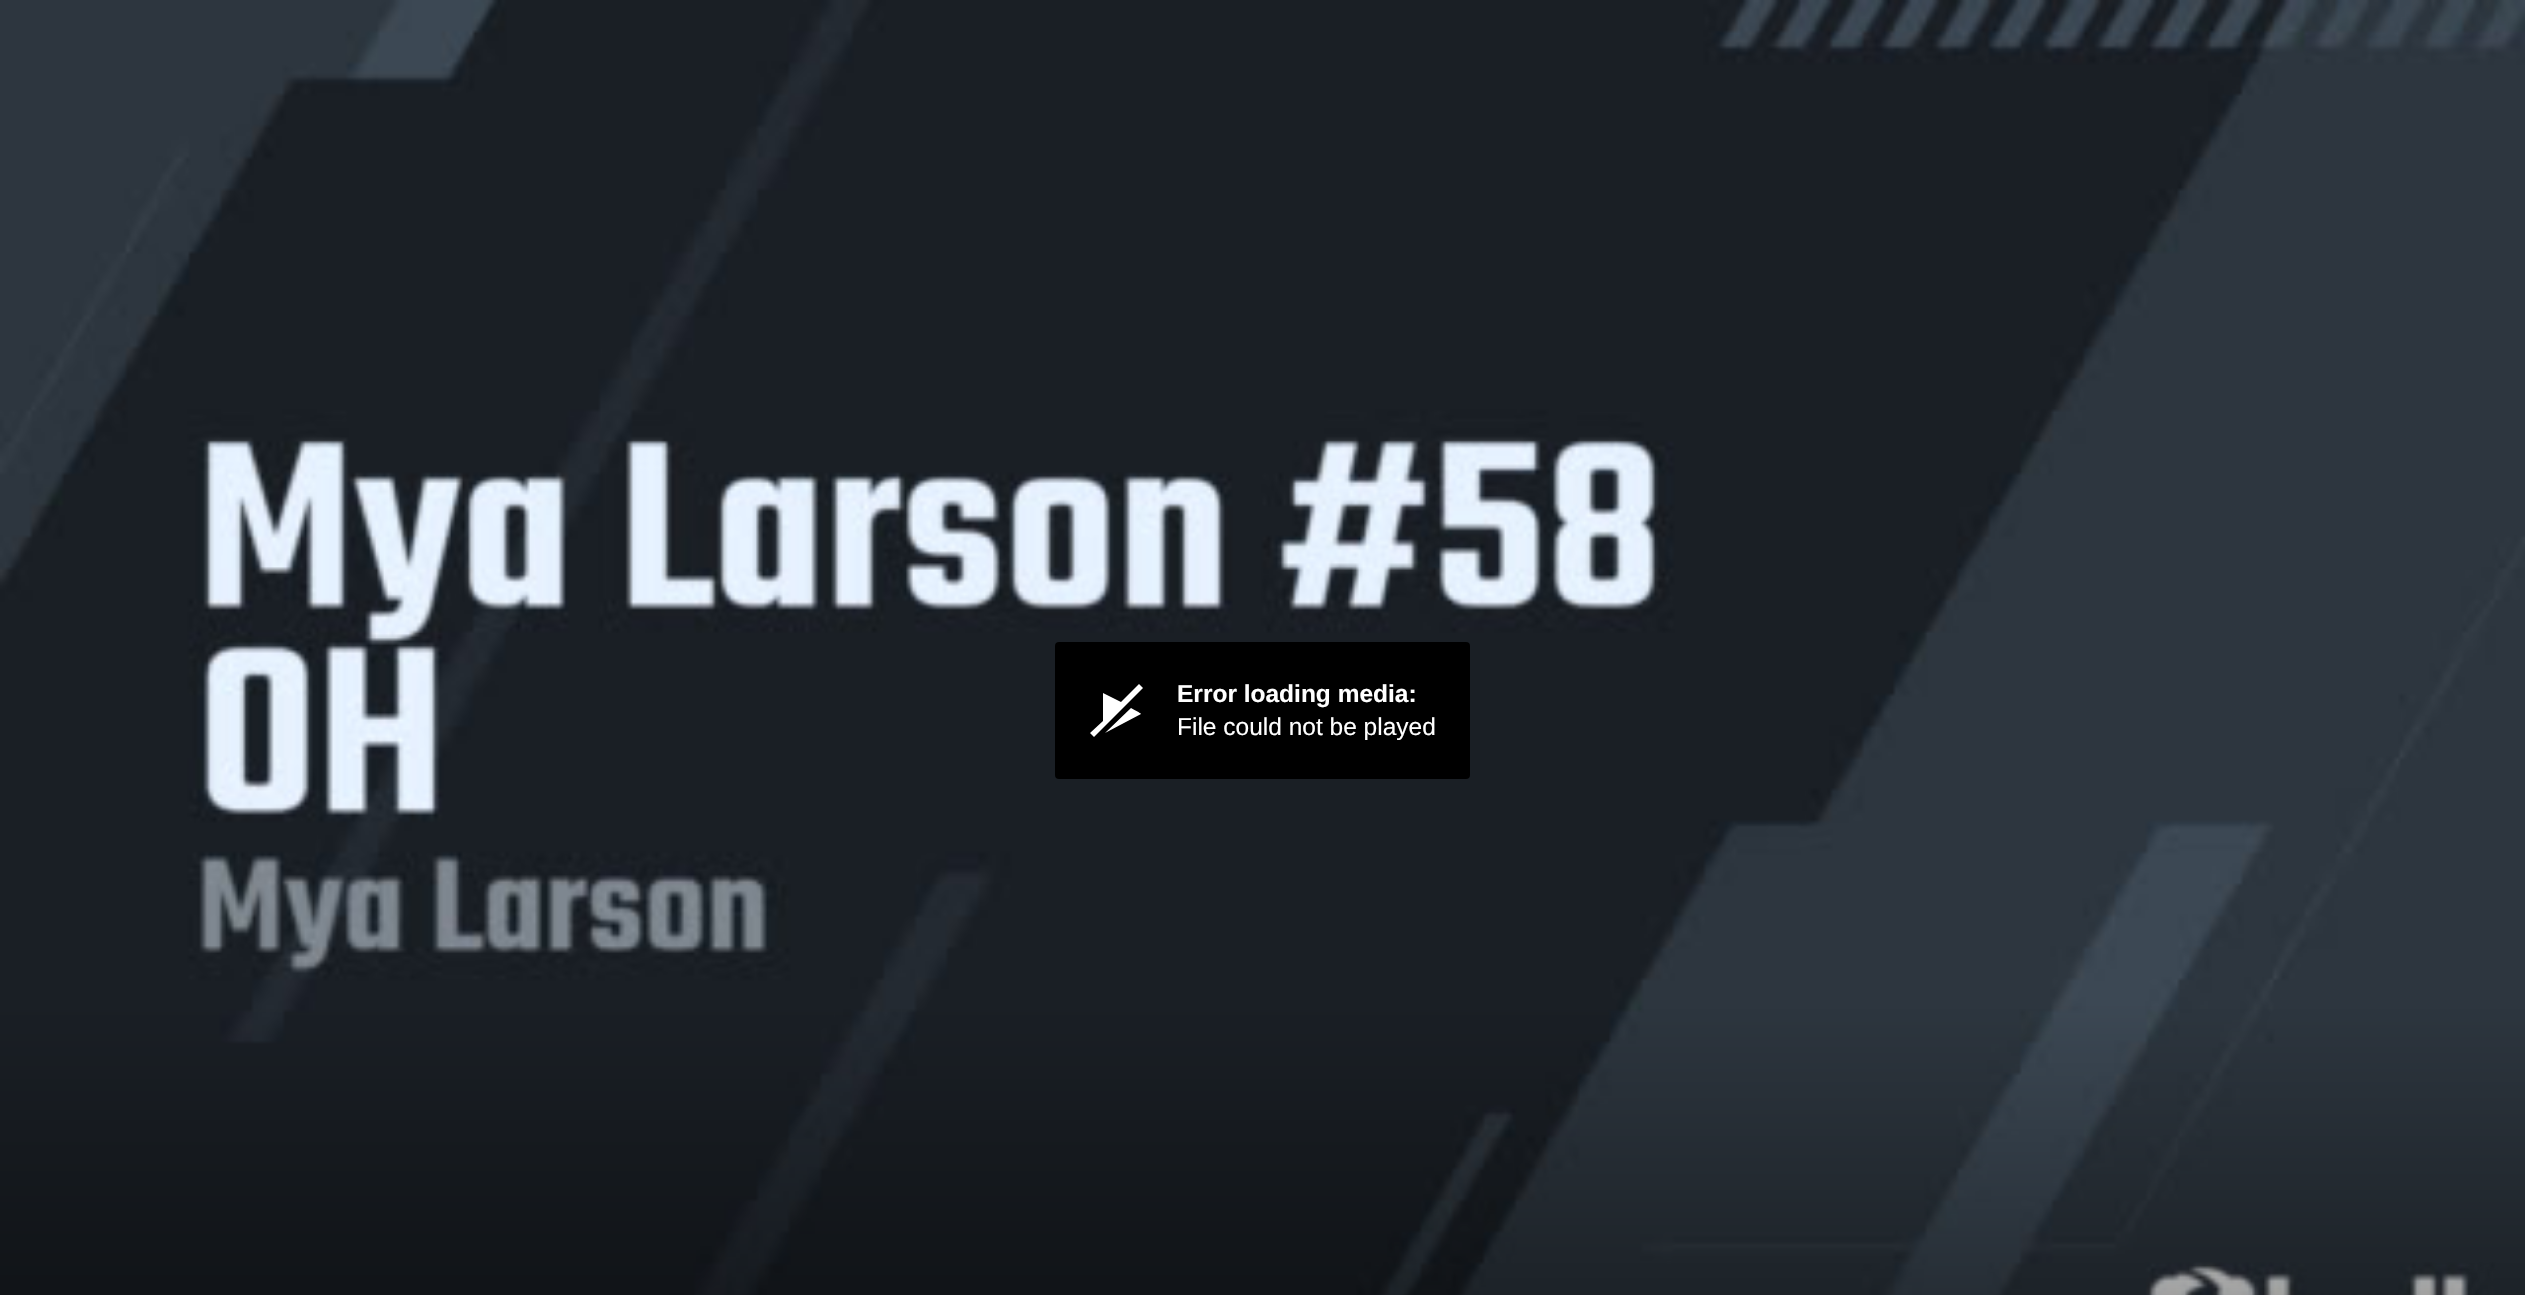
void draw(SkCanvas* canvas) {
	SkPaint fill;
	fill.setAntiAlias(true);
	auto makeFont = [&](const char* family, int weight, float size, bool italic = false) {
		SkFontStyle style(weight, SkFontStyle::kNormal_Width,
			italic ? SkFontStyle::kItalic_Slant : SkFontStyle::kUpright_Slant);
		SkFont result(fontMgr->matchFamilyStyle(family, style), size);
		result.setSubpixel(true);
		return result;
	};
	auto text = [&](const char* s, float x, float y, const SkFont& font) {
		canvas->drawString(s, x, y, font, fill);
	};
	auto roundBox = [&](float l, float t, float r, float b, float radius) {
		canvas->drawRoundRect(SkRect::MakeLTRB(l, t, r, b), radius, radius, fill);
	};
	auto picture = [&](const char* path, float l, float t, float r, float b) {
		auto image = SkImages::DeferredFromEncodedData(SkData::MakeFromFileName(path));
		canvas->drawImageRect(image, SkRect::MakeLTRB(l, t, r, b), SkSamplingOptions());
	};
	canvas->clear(0xFFFFFFFF);
	picture("image0.png", 0, 0, 2525, 1295);
	fill.setColor(0xFF000000);
	roundBox(1055, 642, 1470, 779, 4);
	fill.setColor(0xFFFFFFFF);
	canvas->drawPath(SkPathBuilder().moveTo(1141, 714).lineTo(1105, 733).lineTo(1131, 708).cubicTo(1140, 713, 1142, 714, 1141, 714).close().moveTo(1139, 684).lineTo(1121, 702).lineTo(1103, 693).lineTo(1103, 721).lineTo(1090, 733).lineTo(1094, 737).lineTo(1143, 688).close().detach(), fill);
	auto font1 = makeFont("Liberation Sans", 700, 24.5f);
	text("Error loading media:", 1177, 702, font1);
	auto font2 = makeFont("Liberation Sans", 400, 24.5f);
	text("File could not be played", 1177, 735, font2);
}
